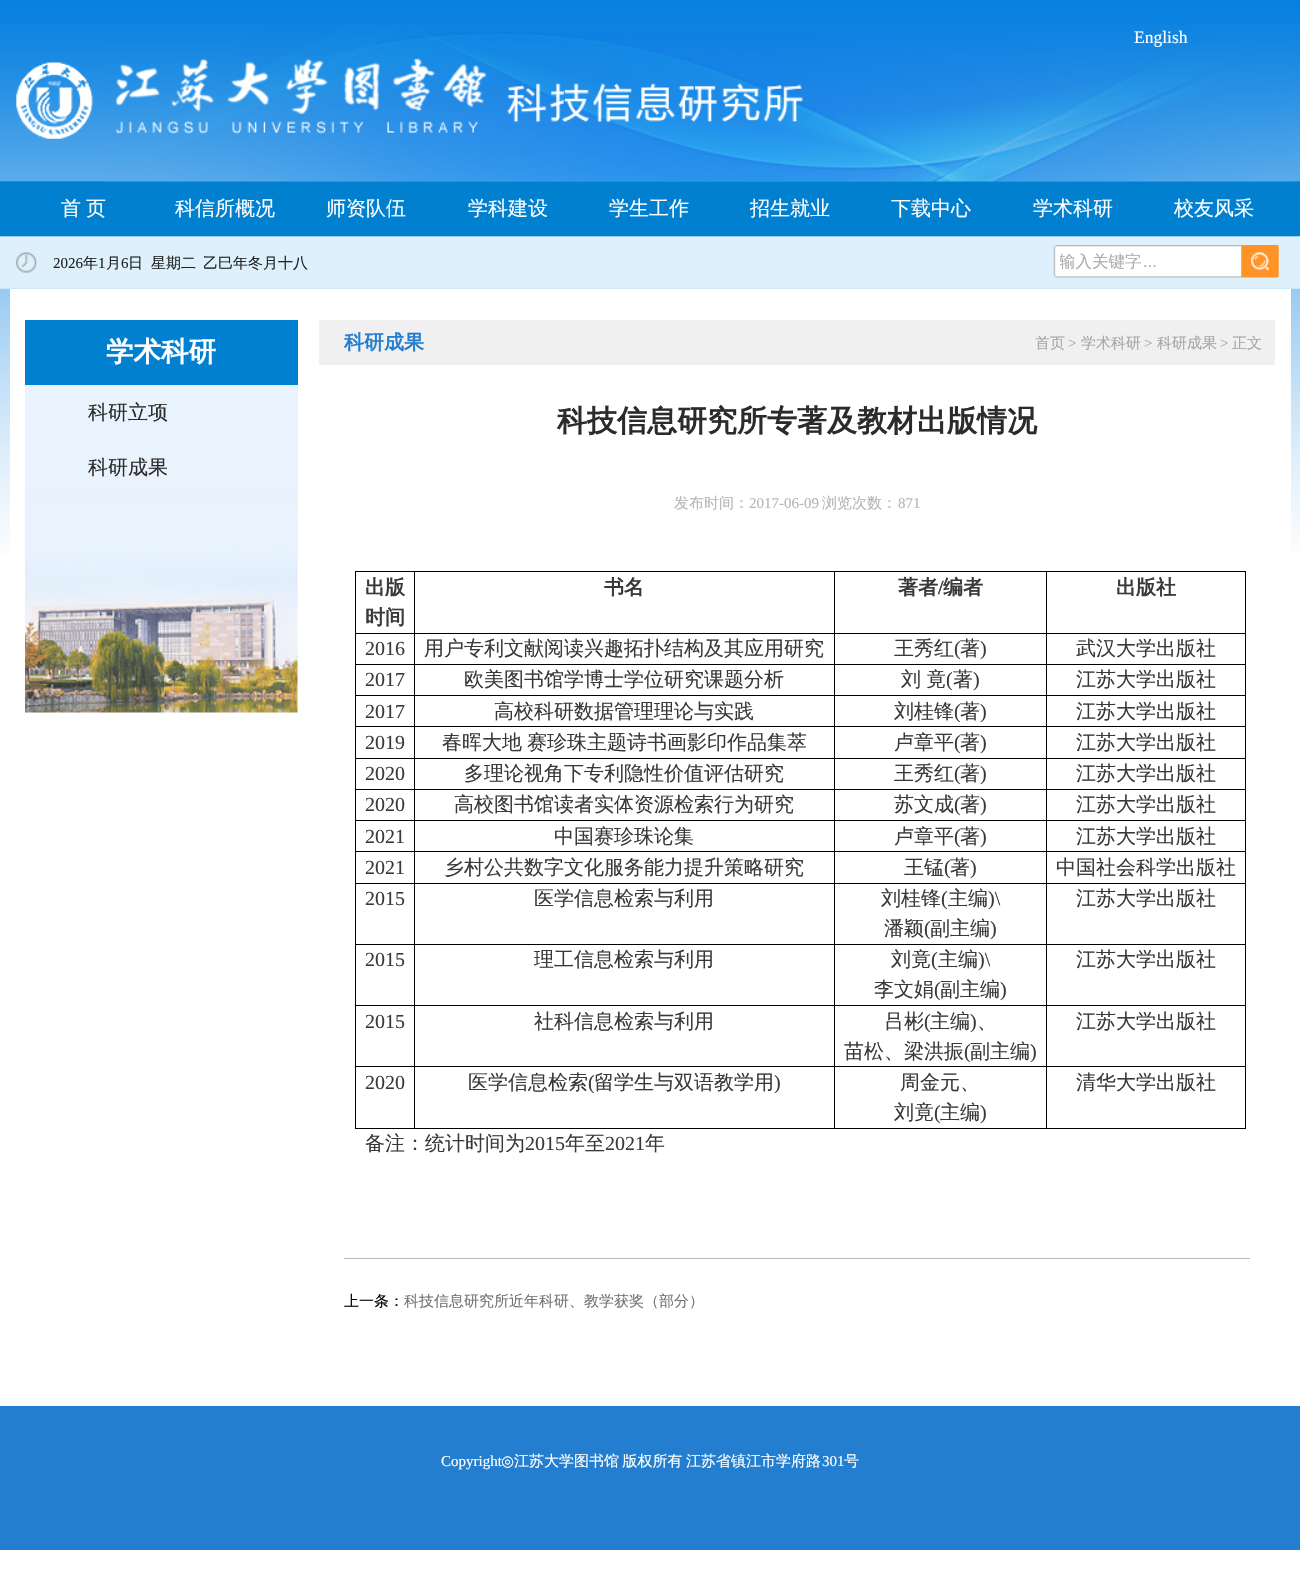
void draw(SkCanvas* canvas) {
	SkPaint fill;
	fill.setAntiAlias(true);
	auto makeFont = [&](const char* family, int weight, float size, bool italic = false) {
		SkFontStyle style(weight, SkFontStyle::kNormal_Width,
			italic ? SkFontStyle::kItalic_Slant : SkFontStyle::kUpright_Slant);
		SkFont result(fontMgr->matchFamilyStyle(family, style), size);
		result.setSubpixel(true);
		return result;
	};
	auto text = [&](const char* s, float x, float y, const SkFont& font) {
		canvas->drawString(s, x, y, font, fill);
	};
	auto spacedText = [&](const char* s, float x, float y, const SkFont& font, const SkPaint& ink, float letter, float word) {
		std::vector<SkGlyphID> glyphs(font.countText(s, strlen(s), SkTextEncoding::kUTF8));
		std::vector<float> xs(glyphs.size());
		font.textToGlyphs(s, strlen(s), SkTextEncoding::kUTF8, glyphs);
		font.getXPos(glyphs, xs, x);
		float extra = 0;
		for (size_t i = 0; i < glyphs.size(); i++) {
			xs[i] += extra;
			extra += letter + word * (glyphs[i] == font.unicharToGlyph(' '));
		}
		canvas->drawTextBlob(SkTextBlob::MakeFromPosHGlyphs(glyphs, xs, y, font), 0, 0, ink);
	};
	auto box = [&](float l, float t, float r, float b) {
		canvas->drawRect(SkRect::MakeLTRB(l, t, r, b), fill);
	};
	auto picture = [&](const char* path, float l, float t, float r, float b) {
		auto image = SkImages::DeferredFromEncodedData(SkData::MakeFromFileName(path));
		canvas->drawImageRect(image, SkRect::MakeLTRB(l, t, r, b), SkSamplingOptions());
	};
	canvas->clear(0xFFFFFFFF);
	picture("image0.png", 0, 0, 1300, 554);
	picture("image1.png", 103, 31, 1291, 182);
	picture("image2.png", 16, 58, 803, 139);
	picture("image3.png", 16, 252, 37, 273);
	picture("image4.png", 1053, 245, 1242, 278);
	picture("image5.png", 1241, 245, 1279, 278);
	fill.setColor(0xFFFFFFFF);
	box(10, 289, 1291, 554);
	fill.setColor(0xFF0280D0);
	box(25, 320, 298, 385);
	fill.setColor(0xFFE8F3FD);
	box(25, 385, 298, 495);
	picture("image6.png", 25, 495, 298, 713);
	fill.setColor(0xFFF0F0F0);
	box(319, 320, 1275, 365);
	fill.setColor(0xFF000000);
	box(1046, 571, 1246, 572);
	box(1245, 633, 1246, 1129);
	box(1245, 571, 1246, 634);
	box(1046, 1128, 1246, 1129);
	box(1046, 1066, 1047, 1129);
	box(1046, 1066, 1246, 1067);
	box(1046, 1005, 1047, 1068);
	box(1046, 1005, 1246, 1006);
	box(1046, 944, 1047, 1006);
	box(1046, 944, 1246, 945);
	box(1046, 883, 1047, 945);
	box(1046, 883, 1246, 884);
	box(1046, 851, 1047, 884);
	box(1046, 851, 1246, 852);
	box(1046, 820, 1047, 853);
	box(1046, 820, 1246, 821);
	box(1046, 789, 1047, 821);
	box(1046, 789, 1246, 790);
	box(1046, 758, 1047, 790);
	box(1046, 758, 1246, 759);
	box(1046, 726, 1047, 759);
	box(1046, 726, 1246, 727);
	box(1046, 695, 1047, 728);
	box(1046, 695, 1246, 696);
	box(1046, 664, 1047, 696);
	box(1046, 664, 1246, 665);
	box(1046, 633, 1047, 665);
	box(1046, 633, 1246, 634);
	box(1046, 571, 1047, 634);
	box(834, 571, 1048, 572);
	box(834, 1128, 1048, 1129);
	box(834, 1066, 835, 1129);
	box(834, 1066, 1048, 1067);
	box(834, 1005, 835, 1068);
	box(834, 1005, 1048, 1006);
	box(834, 944, 835, 1006);
	box(834, 944, 1048, 945);
	box(834, 883, 835, 945);
	box(834, 883, 1048, 884);
	box(834, 851, 835, 884);
	box(834, 851, 1048, 852);
	box(834, 820, 835, 853);
	box(834, 820, 1048, 821);
	box(834, 789, 835, 821);
	box(834, 789, 1048, 790);
	box(834, 758, 835, 790);
	box(834, 758, 1048, 759);
	box(834, 726, 835, 759);
	box(834, 726, 1048, 727);
	box(834, 695, 835, 728);
	box(834, 695, 1048, 696);
	box(834, 664, 835, 696);
	box(834, 664, 1048, 665);
	box(834, 633, 835, 665);
	box(834, 633, 1048, 634);
	box(834, 571, 835, 634);
	box(414, 571, 835, 572);
	box(414, 1128, 835, 1129);
	box(414, 1066, 415, 1129);
	box(414, 1066, 835, 1067);
	box(414, 1005, 415, 1068);
	box(414, 1005, 835, 1006);
	box(414, 944, 415, 1006);
	box(414, 944, 835, 945);
	box(414, 883, 415, 945);
	box(414, 883, 835, 884);
	box(414, 851, 415, 884);
	box(414, 851, 835, 852);
	box(414, 820, 415, 853);
	box(414, 820, 835, 821);
	box(414, 789, 415, 821);
	box(414, 789, 835, 790);
	box(414, 758, 415, 790);
	box(414, 758, 835, 759);
	box(414, 726, 415, 759);
	box(414, 726, 835, 727);
	box(414, 695, 415, 728);
	box(414, 695, 835, 696);
	box(414, 664, 415, 696);
	box(414, 664, 835, 665);
	box(414, 633, 415, 665);
	box(414, 633, 835, 634);
	box(414, 571, 415, 634);
	box(355, 571, 415, 572);
	box(355, 1128, 415, 1129);
	box(355, 1066, 356, 1129);
	box(355, 1066, 415, 1067);
	box(355, 1005, 356, 1068);
	box(355, 1005, 415, 1006);
	box(355, 944, 356, 1006);
	box(355, 944, 415, 945);
	box(355, 883, 356, 945);
	box(355, 883, 415, 884);
	box(355, 851, 356, 884);
	box(355, 851, 415, 852);
	box(355, 820, 356, 853);
	box(355, 820, 415, 821);
	box(355, 789, 356, 821);
	box(355, 789, 415, 790);
	box(355, 758, 356, 790);
	box(355, 758, 415, 759);
	box(355, 726, 356, 759);
	box(355, 726, 415, 727);
	box(355, 695, 356, 728);
	box(355, 695, 415, 696);
	box(355, 664, 356, 696);
	box(355, 664, 415, 665);
	box(355, 633, 356, 665);
	box(355, 633, 415, 634);
	box(355, 571, 356, 634);
	fill.setColor(0xFFB6B6B6);
	box(344, 1258, 1250, 1259);
	fill.setColor(0xFF237ECF);
	box(0, 1406, 1300, 1550);
	auto font1 = makeFont("Liberation Serif", 400, 17.5f);
	fill.setColor(0xFFFFFFFF);
	text("English", 1134, 43, font1);
	auto font2 = makeFont("WenQuanYi Zen Hei", 500, 20);
	spacedText("首 页", 61, 215, font2, fill, 0, -1);
	text("科信所概况", 175, 215, font2);
	text("师资队伍", 326, 215, font2);
	text("学科建设", 468, 215, font2);
	text("学生工作", 609, 215, font2);
	text("招生就业", 750, 215, font2);
	text("下载中心", 891, 215, font2);
	text("学术科研", 1033, 215, font2);
	text("校友风采", 1174, 215, font2);
	auto font3 = makeFont("Liberation Serif", 400, 15);
	fill.setColor(0xFF222222);
	text("2026", 53, 268, font3);
	auto font4 = makeFont("WenQuanYi Zen Hei", 500, 15);
	text("年", 83, 268, font4);
	text("1", 98, 268, font3);
	text("月", 106, 268, font4);
	text("6", 121, 268, font3);
	text("日", 128, 268, font4);
	text("星期二", 151, 268, font4);
	text("乙巳年冬月十八", 203, 268, font4);
	canvas->save();
	canvas->clipRect(SkRect::MakeLTRB(1060, 245, 1241, 278));
	auto font5 = makeFont("WenQuanYi Zen Hei", 500, 16.5f);
	fill.setColor(0xFFACACAC);
	text("输入关键字", 1059, 267, font5);
	canvas->restore();
	auto font6 = makeFont("Liberation Sans", 400, 16.5f);
	text("...", 1143, 267, font6);
	auto font7 = makeFont("WenQuanYi Zen Hei", 700, 27.5f);
	fill.setColor(0xFFFFFFFF);
	text("学术科研", 106, 361, font7);
	fill.setColor(0xFF2B2B2B);
	text("科研立项", 88, 419, font2);
	text("科研成果", 88, 474, font2);
	auto font8 = makeFont("WenQuanYi Zen Hei", 700, 20);
	fill.setColor(0xFF237ED0);
	text("科研成果", 344, 349, font8);
	fill.setColor(0xFFA6A6A6);
	text("首页", 1035, 348, font4);
	text(">", 1068, 348, font3);
	text("学术科研", 1081, 348, font4);
	text(">", 1144, 348, font3);
	text("科研成果", 1157, 348, font4);
	text(">", 1220, 348, font3);
	text("正文", 1232, 348, font4);
	auto font9 = makeFont("WenQuanYi Zen Hei", 700, 30);
	fill.setColor(0xFF2B2B2B);
	text("科技信息研究所专著及教材出版情况", 557, 431, font9);
	fill.setColor(0xFFB5B5B5);
	text("发布时间：", 674, 508, font4);
	text("2017-06-09", 749, 508, font3);
	text("浏览次数：", 822, 508, font4);
	text("871", 898, 508, font3);
	fill.setColor(0xFF393939);
	text("出版", 365, 594, font8);
	text("时间", 365, 624, font8);
	text("书名", 604, 594, font8);
	text("著者", 898, 594, font8);
	auto font10 = makeFont("Liberation Serif", 700, 20);
	text("/", 938, 594, font10);
	text("编者", 943, 594, font8);
	text("出版社", 1116, 594, font8);
	auto font11 = makeFont("Liberation Serif", 400, 20);
	text("2016", 365, 655, font11);
	text("用户专利文献阅读兴趣拓扑结构及其应用研究", 424, 655, font2);
	text("王秀红", 894, 655, font2);
	text("(", 954, 655, font11);
	text("著", 960, 655, font2);
	text(")", 980, 655, font11);
	text("武汉大学出版社", 1076, 655, font2);
	text("2017", 365, 686, font11);
	text("欧美图书馆学博士学位研究课题分析", 464, 686, font2);
	text("刘", 901, 686, font2);
	text("竟", 926, 686, font2);
	text("(", 946, 686, font11);
	text("著", 953, 686, font2);
	text(")", 973, 686, font11);
	text("江苏大学出版社", 1076, 686, font2);
	text("2017", 365, 718, font11);
	text("高校科研数据管理理论与实践", 494, 718, font2);
	text("刘桂锋", 894, 718, font2);
	text("(", 954, 718, font11);
	text("著", 960, 718, font2);
	text(")", 980, 718, font11);
	text("江苏大学出版社", 1076, 718, font2);
	text("2019", 365, 749, font11);
	text("春晖大地", 442, 749, font2);
	text("赛珍珠主题诗书画影印作品集萃", 527, 749, font2);
	text("卢章平", 894, 749, font2);
	text("(", 954, 749, font11);
	text("著", 960, 749, font2);
	text(")", 980, 749, font11);
	text("江苏大学出版社", 1076, 749, font2);
	text("2020", 365, 780, font11);
	text("多理论视角下专利隐性价值评估研究", 464, 780, font2);
	text("王秀红", 894, 780, font2);
	text("(", 954, 780, font11);
	text("著", 960, 780, font2);
	text(")", 980, 780, font11);
	text("江苏大学出版社", 1076, 780, font2);
	text("2020", 365, 811, font11);
	text("高校图书馆读者实体资源检索行为研究", 454, 811, font2);
	text("苏文成", 894, 811, font2);
	text("(", 954, 811, font11);
	text("著", 960, 811, font2);
	text(")", 980, 811, font11);
	text("江苏大学出版社", 1076, 811, font2);
	text("2021", 365, 843, font11);
	text("中国赛珍珠论集", 554, 843, font2);
	text("卢章平", 894, 843, font2);
	text("(", 954, 843, font11);
	text("著", 960, 843, font2);
	text(")", 980, 843, font11);
	text("江苏大学出版社", 1076, 843, font2);
	text("2021", 365, 874, font11);
	text("乡村公共数字文化服务能力提升策略研究", 444, 874, font2);
	text("王锰", 904, 874, font2);
	text("(", 944, 874, font11);
	text("著", 950, 874, font2);
	text(")", 970, 874, font11);
	text("中国社会科学出版社", 1056, 874, font2);
	text("2015", 365, 905, font11);
	text("医学信息检索与利用", 534, 905, font2);
	text("刘桂锋", 881, 905, font2);
	text("(", 941, 905, font11);
	text("主编", 948, 905, font2);
	text(")\\", 988, 905, font11);
	text("潘颖", 884, 935, font2);
	text("(", 924, 935, font11);
	text("副主编", 930, 935, font2);
	text(")", 990, 935, font11);
	text("江苏大学出版社", 1076, 905, font2);
	text("2015", 365, 966, font11);
	text("理工信息检索与利用", 534, 966, font2);
	text("刘竟", 891, 966, font2);
	text("(", 931, 966, font11);
	text("主编", 938, 966, font2);
	text(")\\", 978, 966, font11);
	text("李文娟", 874, 996, font2);
	text("(", 934, 996, font11);
	text("副主编", 940, 996, font2);
	text(")", 1000, 996, font11);
	text("江苏大学出版社", 1076, 966, font2);
	text("2015", 365, 1028, font11);
	text("社科信息检索与利用", 534, 1028, font2);
	text("吕彬", 884, 1028, font2);
	text("(", 924, 1028, font11);
	text("主编", 930, 1028, font2);
	text(")", 970, 1028, font11);
	text("、", 977, 1028, font2);
	text("苗松、梁洪振", 844, 1058, font2);
	text("(", 964, 1058, font11);
	text("副主编", 970, 1058, font2);
	text(")", 1030, 1058, font11);
	text("江苏大学出版社", 1076, 1028, font2);
	text("2020", 365, 1089, font11);
	text("医学信息检索", 468, 1089, font2);
	text("(", 588, 1089, font11);
	text("留学生与双语教学用", 594, 1089, font2);
	text(")", 774, 1089, font11);
	text("周金元、", 900, 1089, font2);
	text("刘竟", 894, 1119, font2);
	text("(", 934, 1119, font11);
	text("主编", 940, 1119, font2);
	text(")", 980, 1119, font11);
	text("清华大学出版社", 1076, 1089, font2);
	text("备注：统计时间为", 365, 1150, font2);
	text("2015", 525, 1150, font11);
	text("年至", 565, 1150, font2);
	text("2021", 605, 1150, font11);
	text("年", 645, 1150, font2);
	fill.setColor(0xFF000000);
	text("上一条：", 344, 1306, font4);
	fill.setColor(0xFF727272);
	text("科技信息研究所近年科研、教学获奖（部分）", 404, 1306, font4);
	fill.setColor(0xFFFFFFFF);
	text("Copyright", 441, 1466, font3);
	auto font12 = makeFont("DejaVu Sans", 400, 15);
	text("◎", 501, 1466, font12);
	spacedText("江苏大学图书馆 版权所有 江苏省镇江市学府路", 514, 1466, font4, fill, 0, -1);
	text("301", 822, 1466, font3);
	text("号", 844, 1466, font4);
}
